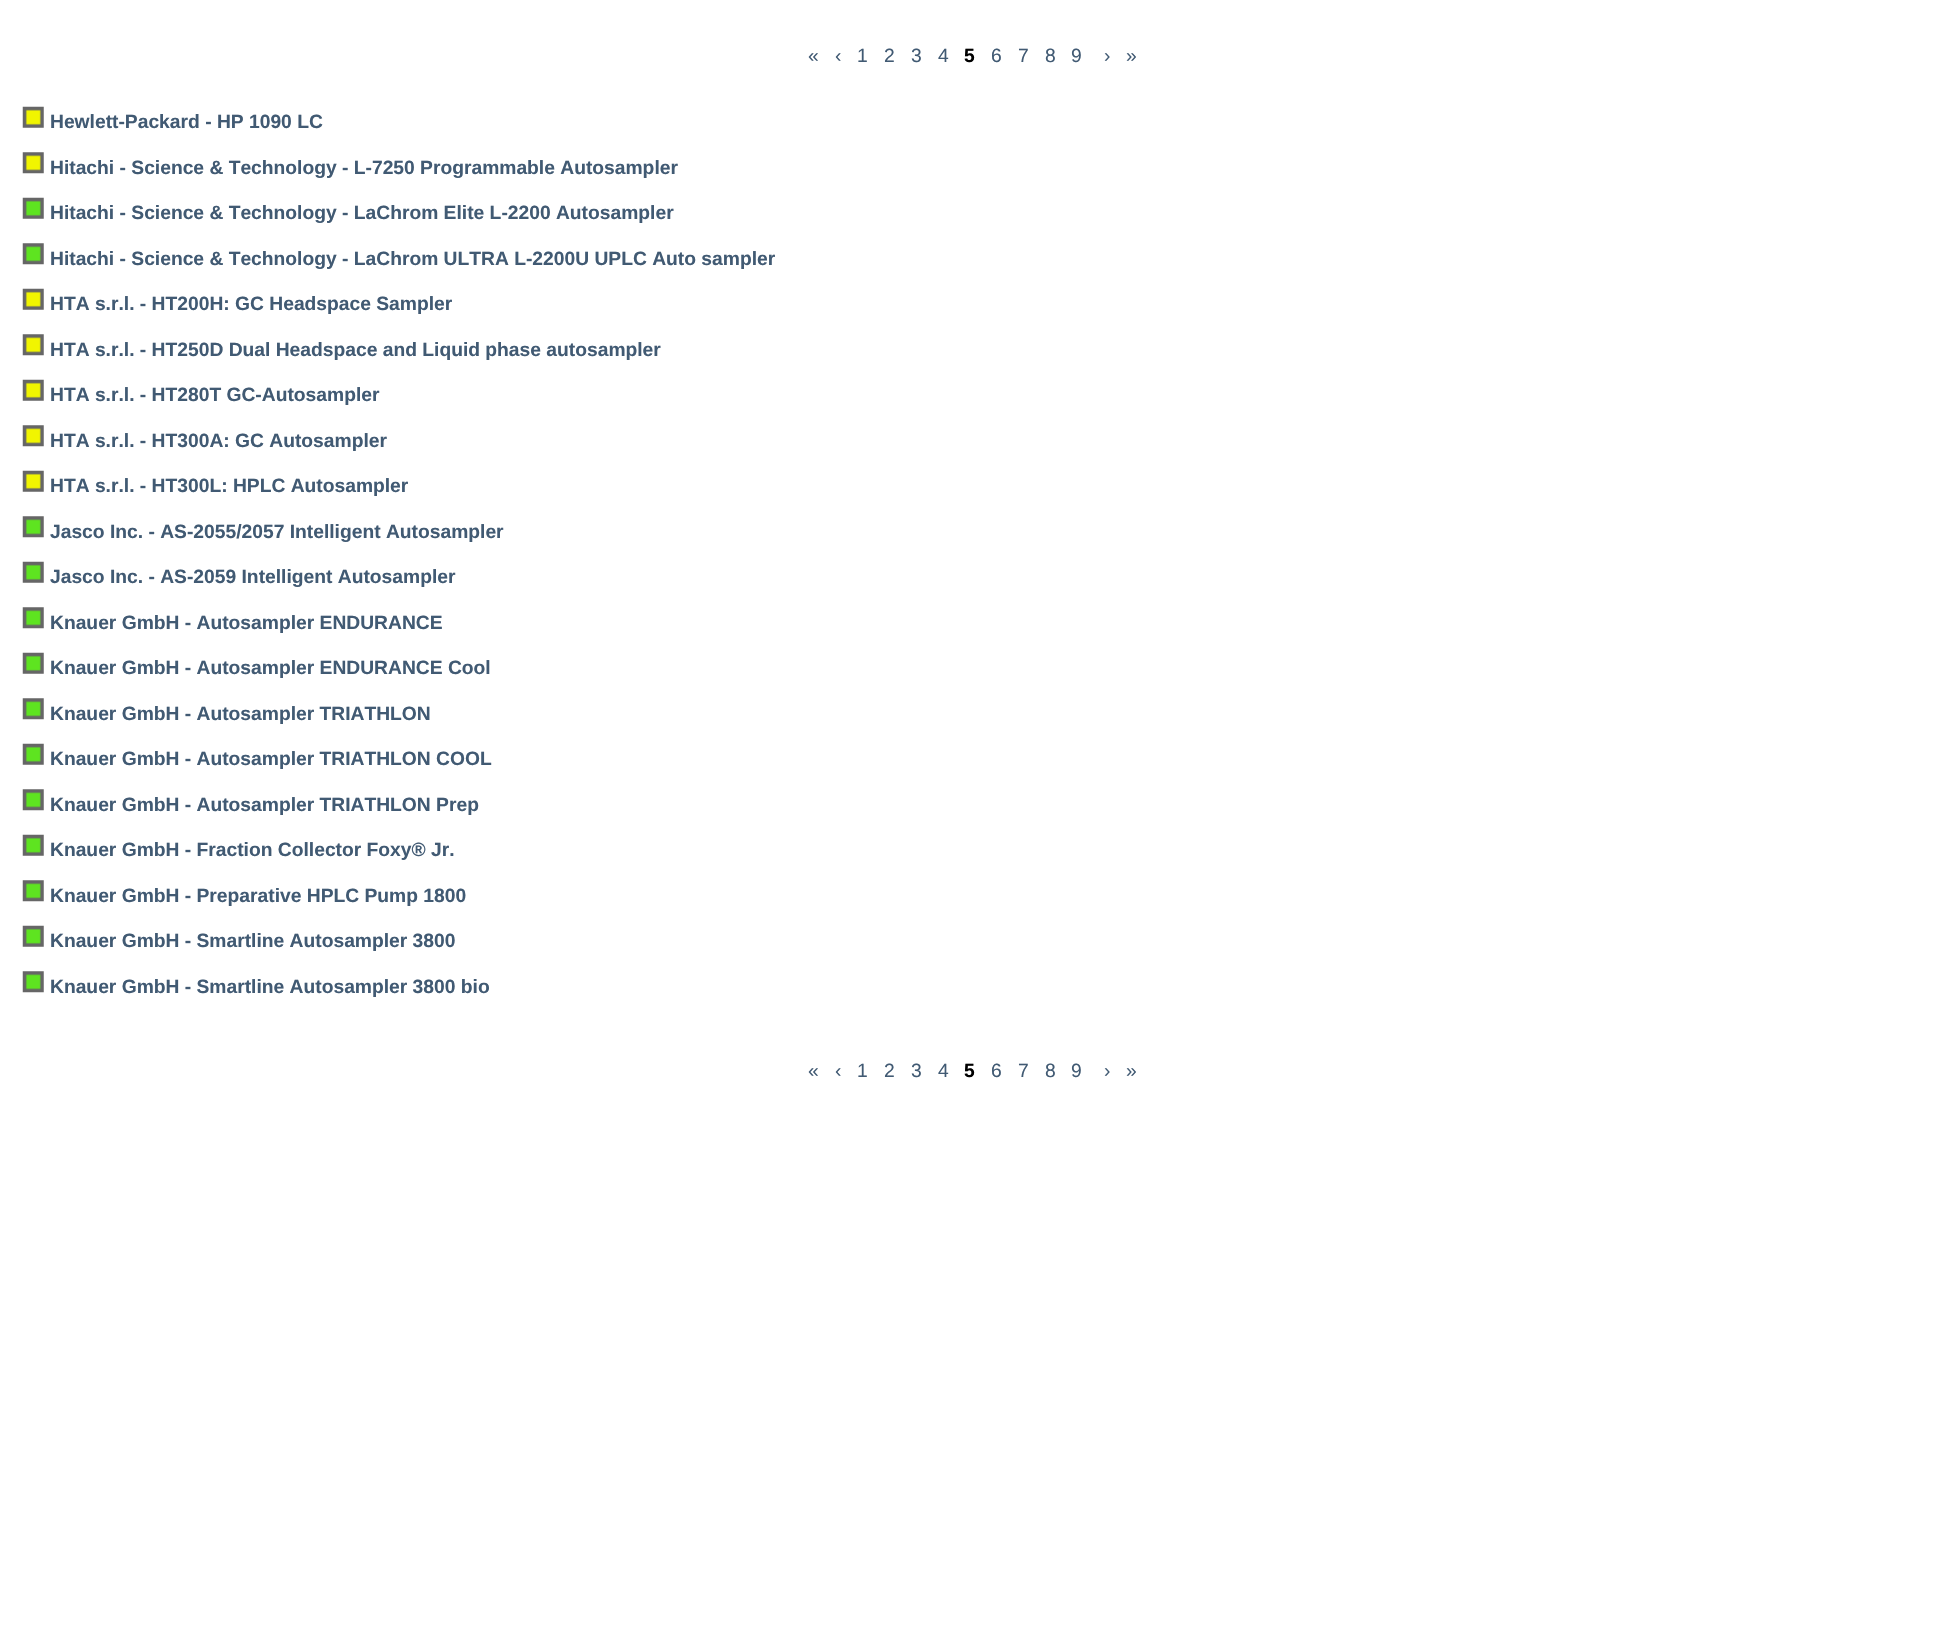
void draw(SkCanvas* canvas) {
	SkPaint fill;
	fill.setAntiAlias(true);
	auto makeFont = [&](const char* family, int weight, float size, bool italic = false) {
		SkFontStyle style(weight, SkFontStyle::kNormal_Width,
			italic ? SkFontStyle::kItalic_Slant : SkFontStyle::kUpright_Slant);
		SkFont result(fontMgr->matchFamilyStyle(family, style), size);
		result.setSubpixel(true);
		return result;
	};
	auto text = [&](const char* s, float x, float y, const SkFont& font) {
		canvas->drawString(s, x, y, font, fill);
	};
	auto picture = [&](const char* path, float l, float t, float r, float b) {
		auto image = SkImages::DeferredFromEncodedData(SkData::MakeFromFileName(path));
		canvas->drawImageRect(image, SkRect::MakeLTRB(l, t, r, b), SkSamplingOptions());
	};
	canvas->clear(0xFFFFFFFF);
	picture("image0.png", 22, 106, 44, 128);
	picture("image1.png", 22, 152, 44, 174);
	picture("image2.png", 22, 197, 44, 219);
	picture("image3.png", 22, 243, 44, 265);
	picture("image0.png", 22, 288, 44, 310);
	picture("image1.png", 22, 334, 44, 356);
	picture("image0.png", 22, 379, 44, 401);
	picture("image1.png", 22, 425, 44, 447);
	picture("image0.png", 22, 470, 44, 492);
	picture("image3.png", 22, 516, 44, 538);
	picture("image2.png", 22, 561, 44, 583);
	picture("image3.png", 22, 607, 44, 629);
	picture("image2.png", 22, 652, 44, 674);
	picture("image3.png", 22, 698, 44, 720);
	picture("image2.png", 22, 743, 44, 765);
	picture("image3.png", 22, 789, 44, 811);
	picture("image2.png", 22, 834, 44, 856);
	picture("image3.png", 22, 880, 44, 902);
	picture("image2.png", 22, 925, 44, 947);
	picture("image3.png", 22, 971, 44, 993);
	auto font1 = makeFont("Liberation Sans", 400, 19.25f);
	fill.setColor(0xFF415A73);
	text("«", 808, 62, font1);
	text("‹", 835, 62, font1);
	text("1", 857, 62, font1);
	text("2", 884, 62, font1);
	text("3", 911, 62, font1);
	text("4", 938, 62, font1);
	auto font2 = makeFont("Liberation Sans", 700, 19.25f);
	fill.setColor(0xFF000000);
	text("5", 964, 62, font2);
	fill.setColor(0xFF415A73);
	text("6", 991, 62, font1);
	text("7", 1018, 62, font1);
	text("8", 1045, 62, font1);
	text("9", 1071, 62, font1);
	text("›", 1104, 62, font1);
	text("»", 1126, 62, font1);
	text("Hewlett-Packard - HP 1090 LC", 50, 128, font2);
	text("Hitachi - Science & Technology - L-7250 Programmable Autosampler", 50, 174, font2);
	text("Hitachi - Science & Technology - LaChrom Elite L-2200 Autosampler", 50, 219, font2);
	text("Hitachi - Science & Technology - LaChrom ULTRA L-2200U UPLC Auto sampler", 50, 265, font2);
	text("HTA s.r.l. - HT200H: GC Headspace Sampler", 50, 310, font2);
	text("HTA s.r.l. - HT250D Dual Headspace and Liquid phase autosampler", 50, 356, font2);
	text("HTA s.r.l. - HT280T GC-Autosampler", 50, 401, font2);
	text("HTA s.r.l. - HT300A: GC Autosampler", 50, 447, font2);
	text("HTA s.r.l. - HT300L: HPLC Autosampler", 50, 492, font2);
	text("Jasco Inc. - AS-2055/2057 Intelligent Autosampler", 50, 538, font2);
	text("Jasco Inc. - AS-2059 Intelligent Autosampler", 50, 583, font2);
	text("Knauer GmbH - Autosampler ENDURANCE", 50, 629, font2);
	text("Knauer GmbH - Autosampler ENDURANCE Cool", 50, 674, font2);
	text("Knauer GmbH - Autosampler TRIATHLON", 50, 720, font2);
	text("Knauer GmbH - Autosampler TRIATHLON COOL", 50, 765, font2);
	text("Knauer GmbH - Autosampler TRIATHLON Prep", 50, 811, font2);
	text("Knauer GmbH - Fraction Collector Foxy® Jr.", 50, 856, font2);
	text("Knauer GmbH - Preparative HPLC Pump 1800", 50, 902, font2);
	text("Knauer GmbH - Smartline Autosampler 3800", 50, 947, font2);
	text("Knauer GmbH - Smartline Autosampler 3800 bio", 50, 993, font2);
	text("«", 808, 1077, font1);
	text("‹", 835, 1077, font1);
	text("1", 857, 1077, font1);
	text("2", 884, 1077, font1);
	text("3", 911, 1077, font1);
	text("4", 938, 1077, font1);
	fill.setColor(0xFF000000);
	text("5", 964, 1077, font2);
	fill.setColor(0xFF415A73);
	text("6", 991, 1077, font1);
	text("7", 1018, 1077, font1);
	text("8", 1045, 1077, font1);
	text("9", 1071, 1077, font1);
	text("›", 1104, 1077, font1);
	text("»", 1126, 1077, font1);
}
